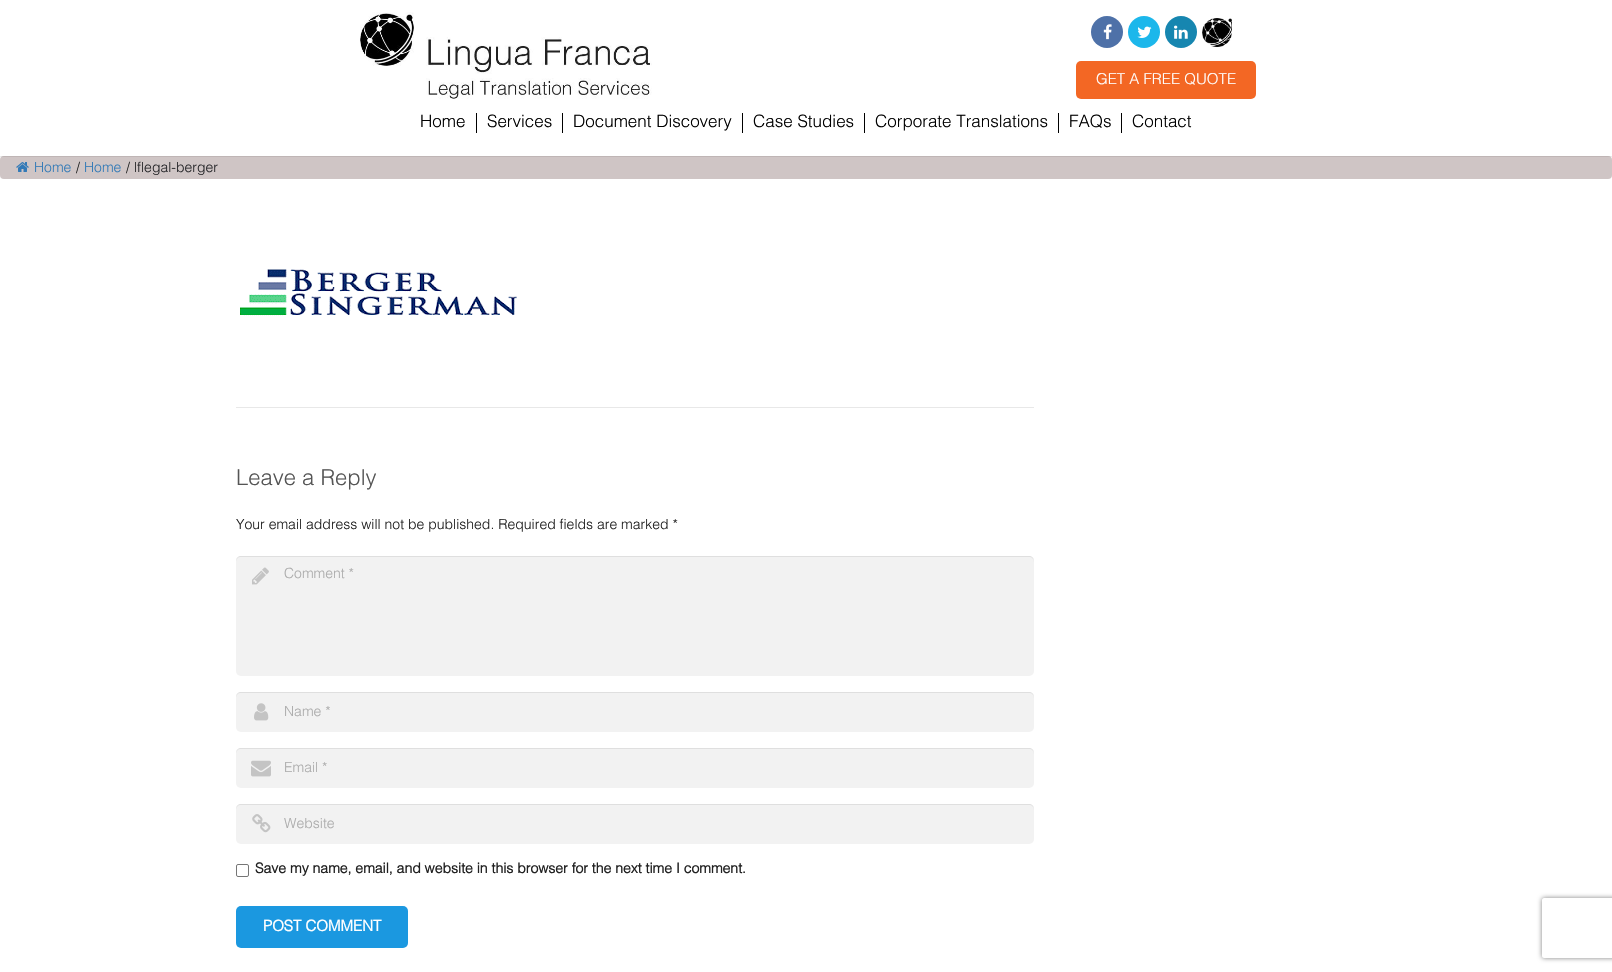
void draw(SkCanvas* canvas) {
	SkPaint fill;
	fill.setAntiAlias(true);
	auto makeFont = [&](const char* family, int weight, float size, bool italic = false) {
		SkFontStyle style(weight, SkFontStyle::kNormal_Width,
			italic ? SkFontStyle::kItalic_Slant : SkFontStyle::kUpright_Slant);
		SkFont result(fontMgr->matchFamilyStyle(family, style), size);
		result.setSubpixel(true);
		return result;
	};
	auto text = [&](const char* s, float x, float y, const SkFont& font) {
		canvas->drawString(s, x, y, font, fill);
	};
	auto box = [&](float l, float t, float r, float b) {
		canvas->drawRect(SkRect::MakeLTRB(l, t, r, b), fill);
	};
	auto roundBox = [&](float l, float t, float r, float b, float radius) {
		canvas->drawRoundRect(SkRect::MakeLTRB(l, t, r, b), radius, radius, fill);
	};
	auto picture = [&](const char* path, float l, float t, float r, float b) {
		auto image = SkImages::DeferredFromEncodedData(SkData::MakeFromFileName(path));
		canvas->drawImageRect(image, SkRect::MakeLTRB(l, t, r, b), SkSamplingOptions());
	};
	canvas->clear(0xFFFFFFFF);
	picture("image0.png", 360, 12, 652, 99);
	fill.setColor(0xFF4E71A8);
	canvas->drawCircle(1107, 32, 16, fill);
	picture("image1.png", 1103, 24, 1112, 40);
	fill.setColor(0xFF1CB7EB);
	canvas->drawCircle(1144, 32, 16, fill);
	picture("image2.png", 1137, 26, 1152, 38);
	fill.setColor(0xFF1686B0);
	canvas->drawCircle(1181, 32, 16, fill);
	picture("image3.png", 1174, 25, 1188, 39);
	picture("image4.png", 1202, 18, 1232, 47);
	fill.setColor(0xFFF36724);
	roundBox(1076, 61, 1256, 99, 5);
	fill.setColor(0xFFCFC5C5);
	roundBox(0, 156, 1612, 179, 4);
	fill.setColor(0x14000000);
	box(0, 156, 1612, 157);
	fill.setColor(0xFF000000);
	box(476, 113, 477, 133);
	box(562, 113, 563, 133);
	box(742, 113, 743, 133);
	box(864, 113, 865, 133);
	box(1058, 113, 1059, 133);
	box(1121, 113, 1122, 133);
	picture("image5.png", 16, 162, 29, 172);
	picture("image6.png", 240, 269, 517, 316);
	fill.setColor(0xFFE8E8E8);
	box(236, 407, 1034, 408);
	fill.setColor(0xFFF2F2F2);
	roundBox(236, 556, 1034, 676, 5);
	picture("image7.png", 252, 567, 269, 585);
	fill.setColor(0x14000000);
	canvas->drawPath(SkPathBuilder().moveTo(241, 557).lineTo(1029, 557).cubicTo(1032, 557, 1034, 559, 1034, 562).lineTo(1034, 561).cubicTo(1034, 558, 1032, 556, 1029, 556).lineTo(241, 556).cubicTo(238, 556, 236, 558, 236, 561).lineTo(236, 562).cubicTo(236, 559, 238, 557, 241, 557).close().detach(), fill);
	fill.setColor(0xFFF2F2F2);
	roundBox(236, 692, 1034, 732, 5);
	picture("image8.png", 254, 703, 269, 721);
	fill.setColor(0x14000000);
	canvas->drawPath(SkPathBuilder().moveTo(241, 693).lineTo(1029, 693).cubicTo(1032, 693, 1034, 695, 1034, 698).lineTo(1034, 697).cubicTo(1034, 694, 1032, 692, 1029, 692).lineTo(241, 692).cubicTo(238, 692, 236, 694, 236, 697).lineTo(236, 698).cubicTo(236, 695, 238, 693, 241, 693).close().detach(), fill);
	fill.setColor(0xFFF2F2F2);
	roundBox(236, 748, 1034, 788, 5);
	picture("image9.png", 251, 760, 271, 777);
	fill.setColor(0x14000000);
	canvas->drawPath(SkPathBuilder().moveTo(241, 749).lineTo(1029, 749).cubicTo(1032, 749, 1034, 751, 1034, 754).lineTo(1034, 753).cubicTo(1034, 750, 1032, 748, 1029, 748).lineTo(241, 748).cubicTo(238, 748, 236, 750, 236, 753).lineTo(236, 754).cubicTo(236, 751, 238, 749, 241, 749).close().detach(), fill);
	fill.setColor(0xFFF2F2F2);
	roundBox(236, 804, 1034, 844, 5);
	picture("image10.png", 252, 814, 271, 833);
	fill.setColor(0x14000000);
	canvas->drawPath(SkPathBuilder().moveTo(241, 805).lineTo(1029, 805).cubicTo(1032, 805, 1034, 807, 1034, 810).lineTo(1034, 809).cubicTo(1034, 806, 1032, 804, 1029, 804).lineTo(241, 804).cubicTo(238, 804, 236, 806, 236, 809).lineTo(236, 810).cubicTo(236, 807, 238, 805, 241, 805).close().detach(), fill);
	fill.setStyle(SkPaint::kStroke_Style);
	fill.setStrokeWidth(1);
	fill.setColor(0xFF767676);
	canvas->drawRoundRect(SkRect::MakeLTRB(236.5f, 864.5f, 248.5f, 876.5f), 1.5f, 1.5f, fill);
	fill.setStyle(SkPaint::kFill_Style);
	fill.setColor(0xFF1B98E0);
	roundBox(236, 906, 408, 948, 5);
	canvas->save();
	canvas->clipPath(SkPathBuilder(SkPathFillType::kEvenOdd).moveTo(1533, 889).lineTo(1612, 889).lineTo(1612, 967).lineTo(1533, 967).close().moveTo(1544, 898).lineTo(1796, 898).cubicTo(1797, 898, 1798, 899, 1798, 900).lineTo(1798, 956).cubicTo(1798, 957, 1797, 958, 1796, 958).lineTo(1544, 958).cubicTo(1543, 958, 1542, 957, 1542, 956).lineTo(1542, 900).cubicTo(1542, 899, 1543, 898, 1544, 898).close().detach(), true);
	fill.setColor(0xFF808080);
	fill.setMaskFilter(SkMaskFilter::MakeBlur(kNormal_SkBlurStyle, 2.5f));
	canvas->drawRoundRect(SkRect::MakeLTRB(1542, 898, 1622, 958), 2, 2, fill);
	fill.setMaskFilter(nullptr);
	canvas->restore();
	auto font1 = makeFont("Helvetica", 300, 15);
	fill.setColor(0xFFFFFFFF);
	text("GET A FREE QUOTE", 1096, 84, font1);
	auto font2 = makeFont("Helvetica", 300, 17);
	fill.setColor(0xFF000000);
	text("Home", 420, 127, font2);
	text("Services", 487, 127, font2);
	text("Document Discovery", 573, 127, font2);
	text("Case Studies", 753, 127, font2);
	text("Corporate Translations", 875, 127, font2);
	text("FAQs", 1069, 127, font2);
	text("Contact", 1132, 127, font2);
	auto font3 = makeFont("Helvetica", 300, 14);
	fill.setColor(0xFF337AB7);
	text("Home", 34, 172, font3);
	fill.setColor(0xFF222222);
	text("/", 76, 172, font3);
	fill.setColor(0xFF337AB7);
	text("Home", 84, 172, font3);
	fill.setColor(0xFF222222);
	text("/", 126, 172, font3);
	fill.setColor(0xFF27272A);
	text("lflegal-berger", 134, 172, font3);
	auto font4 = makeFont("Helvetica", 300, 22);
	fill.setColor(0xFF555555);
	text("Leave a Reply", 236, 485, font4);
	fill.setColor(0xFF222222);
	text("Your email address will not be published. Required fields are marked *", 236, 529, font3);
	fill.setColor(0xFFACACAC);
	text("Comment *", 284, 578, font3);
	text("Name *", 284, 716, font3);
	text("Email *", 284, 772, font3);
	text("Website", 284, 828, font3);
	auto font5 = makeFont("Helvetica", 700, 14);
	fill.setColor(0xFF222222);
	text("Save my name, email, and website in this browser for the next time I comment.", 255, 873, font5);
	auto font6 = makeFont("Helvetica", 700, 15);
	fill.setColor(0xFFFFFFFF);
	text("POST COMMENT", 263, 931, font6);
}
